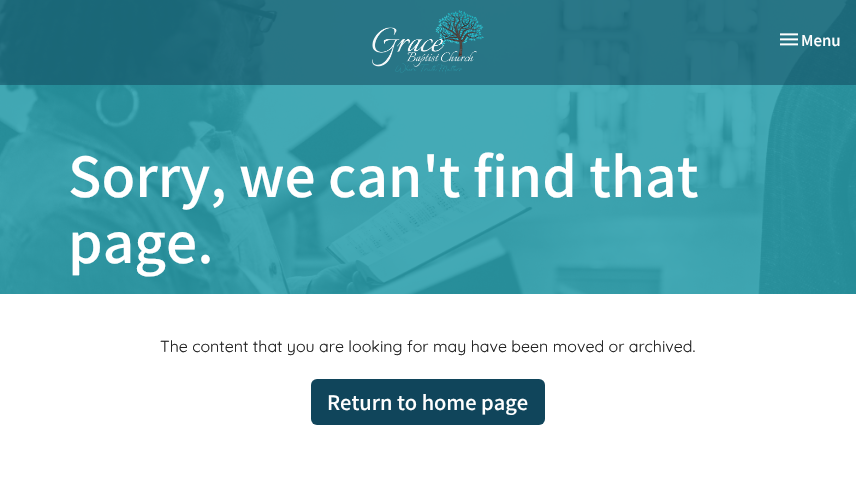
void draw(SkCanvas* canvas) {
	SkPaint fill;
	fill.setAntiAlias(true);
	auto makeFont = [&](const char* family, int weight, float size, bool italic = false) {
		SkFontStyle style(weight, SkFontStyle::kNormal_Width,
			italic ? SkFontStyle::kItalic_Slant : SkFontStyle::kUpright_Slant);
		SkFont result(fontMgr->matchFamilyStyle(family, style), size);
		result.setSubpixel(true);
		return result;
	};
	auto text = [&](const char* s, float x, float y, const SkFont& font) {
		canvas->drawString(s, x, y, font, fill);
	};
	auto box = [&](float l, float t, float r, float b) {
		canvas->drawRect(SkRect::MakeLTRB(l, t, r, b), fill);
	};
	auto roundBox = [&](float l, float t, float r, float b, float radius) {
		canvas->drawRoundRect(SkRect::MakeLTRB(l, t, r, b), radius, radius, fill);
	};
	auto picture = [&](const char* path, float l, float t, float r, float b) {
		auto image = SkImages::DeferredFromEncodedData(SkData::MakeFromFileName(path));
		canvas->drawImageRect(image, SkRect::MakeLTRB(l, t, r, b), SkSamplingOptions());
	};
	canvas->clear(0xFFFFFFFF);
	picture("image2.png", 0, 0, 856, 294);
	fill.setColor(0x8710455B);
	box(0, 0, 856, 85);
	picture("image0.png", 372, 10, 484, 74);
	picture("image1.png", 780, 33, 798, 46);
	fill.setColor(0xFF10455B);
	roundBox(311, 379, 545, 425, 6);
	auto font1 = makeFont("Noto Sans JP", 500, 15);
	fill.setColor(0xFFFFFFFF);
	text("Menu", 801, 46, font1);
	auto font2 = makeFont("Noto Sans JP", 500, 55);
	text("Sorry, we can't find that", 68, 197, font2);
	text("page.", 68, 263, font2);
	auto font3 = makeFont("Quicksand", 400, 16);
	fill.setColor(0xFF222222);
	text("The content that you are looking for may have been moved or archived.", 160, 352, font3);
	auto font4 = makeFont("Noto Sans JP", 500, 20);
	fill.setColor(0xFFFFFFFF);
	text("Return to home page", 327, 410, font4);
}
